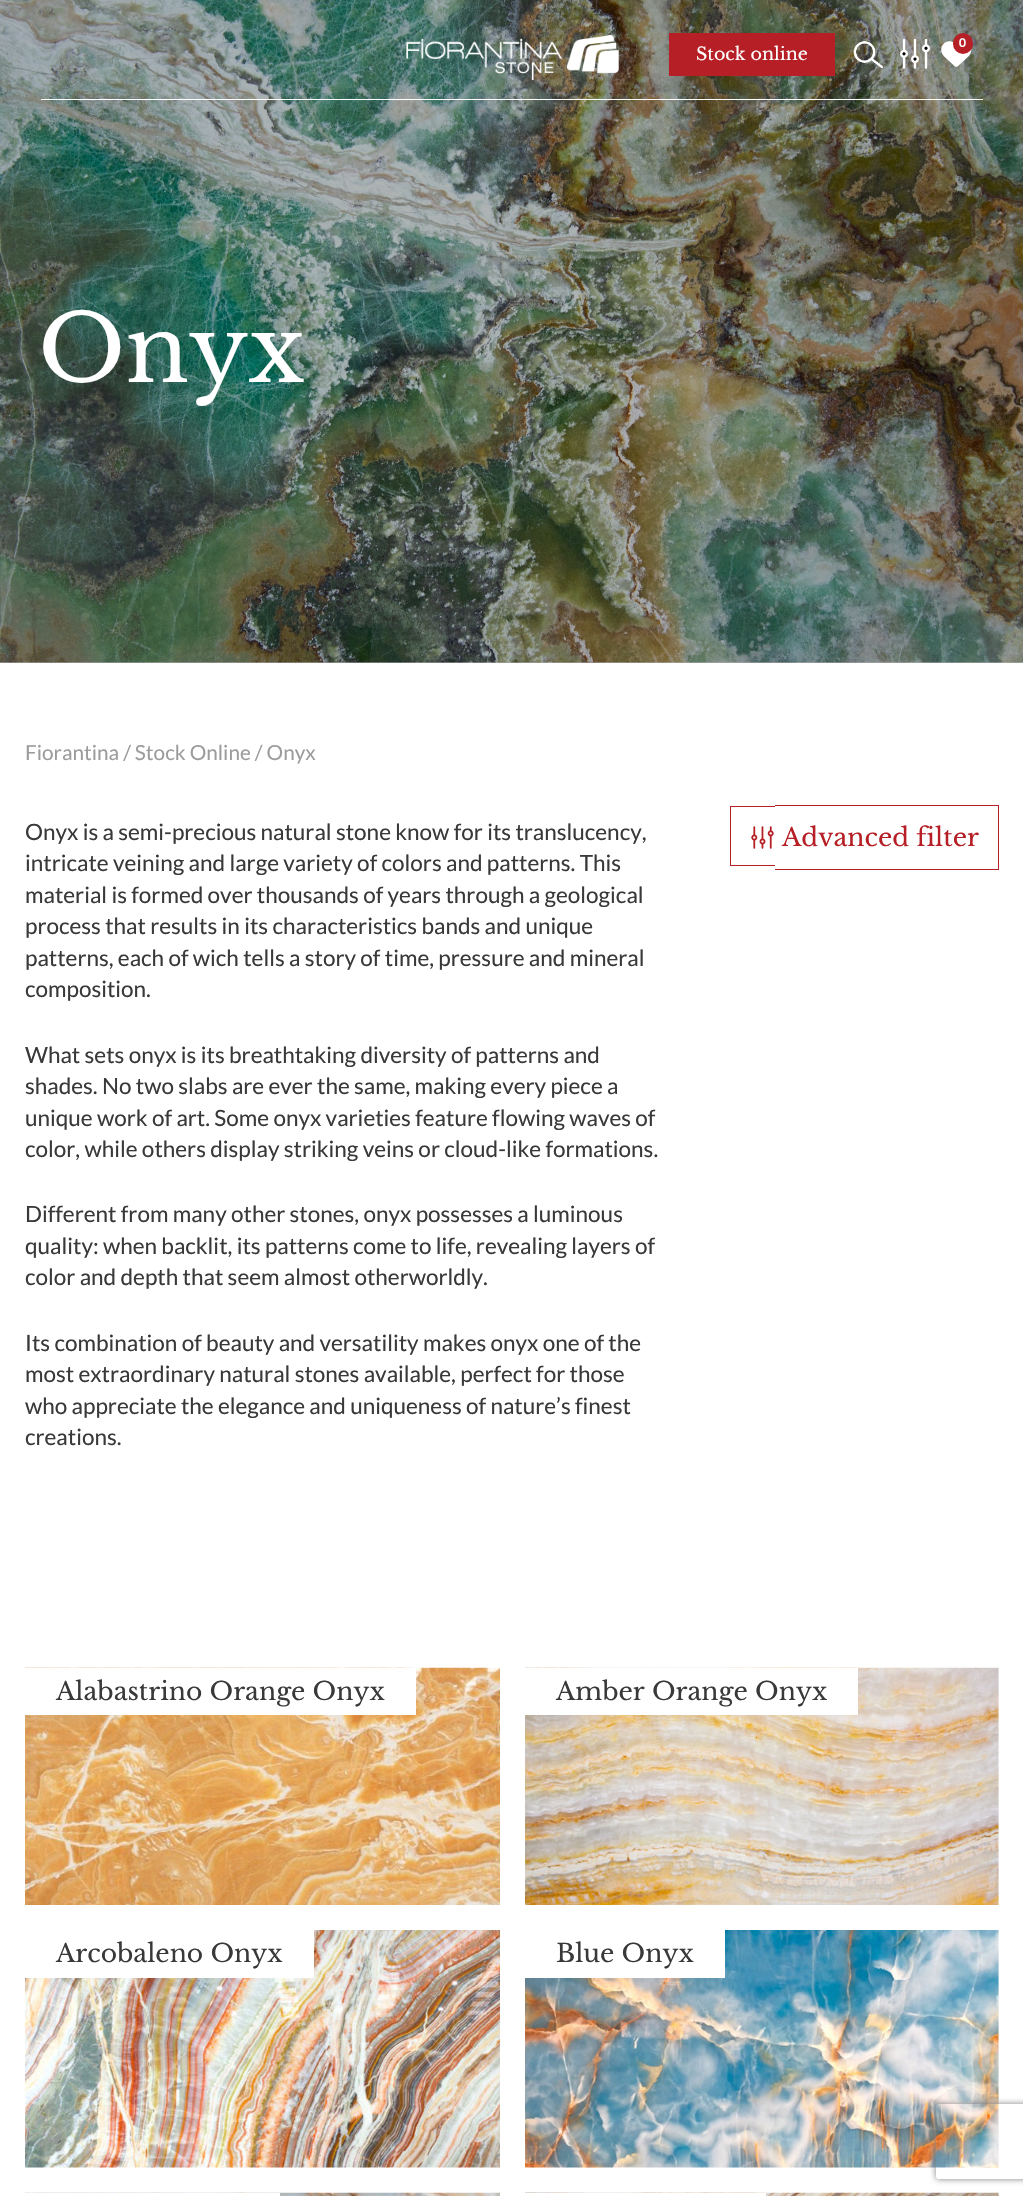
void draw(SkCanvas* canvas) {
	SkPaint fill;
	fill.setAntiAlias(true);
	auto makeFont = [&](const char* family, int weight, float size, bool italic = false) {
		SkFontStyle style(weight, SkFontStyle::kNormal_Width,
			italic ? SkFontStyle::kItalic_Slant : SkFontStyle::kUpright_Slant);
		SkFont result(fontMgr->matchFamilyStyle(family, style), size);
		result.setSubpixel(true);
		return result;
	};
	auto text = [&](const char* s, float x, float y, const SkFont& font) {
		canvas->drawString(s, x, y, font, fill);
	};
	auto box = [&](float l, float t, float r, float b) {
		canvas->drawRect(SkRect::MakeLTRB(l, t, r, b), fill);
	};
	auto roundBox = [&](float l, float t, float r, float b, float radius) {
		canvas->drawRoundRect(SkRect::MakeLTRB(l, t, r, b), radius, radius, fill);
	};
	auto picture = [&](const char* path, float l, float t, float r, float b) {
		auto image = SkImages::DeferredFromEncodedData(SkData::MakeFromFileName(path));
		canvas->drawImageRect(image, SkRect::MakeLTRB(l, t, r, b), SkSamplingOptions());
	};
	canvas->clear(0xFFFFFFFF);
	fill.setColor(0xFFB3B3B3);
	box(0, 662, 1023, 663);
	picture("image4.png", 0, 0, 1023, 663);
	fill.setColor(0xFFFFFFFF);
	box(41, 99, 983, 100);
	picture("image0.png", 406, 35, 619, 80);
	fill.setColor(0xFFB61F25);
	box(669, 33, 835, 76);
	picture("image1.png", 853, 41, 883, 68);
	picture("image2.png", 900, 39, 930, 69);
	picture("image3.png", 941, 41, 972, 67);
	roundBox(953, 33, 973, 54, 10);
	picture("image5.png", 751, 826, 774, 849);
	box(730, 806, 775, 807);
	box(730, 865, 775, 866);
	box(730, 806, 731, 866);
	box(775, 805, 999, 806);
	box(998, 805, 999, 870);
	box(775, 869, 999, 870);
	picture("image6.png", 25, 1667, 500, 1905);
	fill.setColor(0xFFFFFFFF);
	box(25, 1668, 416, 1715);
	picture("image7.png", 525, 1667, 999, 1905);
	box(525, 1668, 858, 1715);
	picture("image8.png", 25, 1930, 500, 2168);
	box(25, 1930, 314, 1978);
	picture("image9.png", 525, 1930, 999, 2168);
	box(525, 1930, 725, 1978);
	picture("image10.png", 25, 2192, 500, 2196);
	box(25, 2193, 280, 2196);
	picture("image11.png", 525, 2192, 999, 2196);
	box(525, 2193, 766, 2196);
	canvas->save();
	canvas->clipPath(SkPathBuilder(SkPathFillType::kEvenOdd).moveTo(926, 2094).lineTo(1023, 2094).lineTo(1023, 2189).lineTo(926, 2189).close().moveTo(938.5f, 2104).lineTo(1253.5f, 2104).cubicTo(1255, 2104, 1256, 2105, 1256, 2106.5f).lineTo(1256, 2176.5f).cubicTo(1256, 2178, 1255, 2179, 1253.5f, 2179).lineTo(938.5f, 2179).cubicTo(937, 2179, 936, 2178, 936, 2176.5f).lineTo(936, 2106.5f).cubicTo(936, 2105, 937, 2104, 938.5f, 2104).close().detach(), true);
	fill.setColor(0xFF808080);
	fill.setMaskFilter(SkMaskFilter::MakeBlur(kNormal_SkBlurStyle, 3));
	canvas->drawRoundRect(SkRect::MakeLTRB(936, 2104, 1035, 2179), 2.5f, 2.5f, fill);
	fill.setMaskFilter(nullptr);
	canvas->restore();
	auto font1 = makeFont("Libre Baskerville", 400, 17.5f);
	fill.setColor(0xFFFFFFFF);
	text("Stock online", 696, 60, font1);
	auto font2 = makeFont("Lato", 700, 12);
	text("0", 959, 47, font2);
	auto font3 = makeFont("Libre Baskerville", 400, 92.5f);
	text("Onyx", 38, 382, font3);
	auto font4 = makeFont("Lato", 400, 20.75f);
	fill.setColor(0xFF9C9C9C);
	text("Fiorantina / Stock Online / Onyx", 25, 760, font4);
	auto font5 = makeFont("Lato", 400, 22.5f);
	fill.setColor(0xFF393939);
	text("Onyx is a semi-precious natural stone know for its translucency,", 25, 840, font5);
	text("intricate veining and large variety of colors and patterns. This", 25, 871, font5);
	text("material is formed over thousands of years through a geological", 25, 903, font5);
	text("process that results in its characteristics bands and unique", 25, 934, font5);
	text("patterns, each of wich tells a story of time, pressure and mineral", 25, 966, font5);
	text("composition.", 25, 997, font5);
	text("What sets onyx is its breathtaking diversity of patterns and", 25, 1063, font5);
	text("shades. No two slabs are ever the same, making every piece a", 25, 1094, font5);
	text("unique work of art. Some onyx varieties feature flowing waves of", 25, 1126, font5);
	text("color, while others display striking veins or cloud-like formations.", 25, 1157, font5);
	text("Different from many other stones, onyx possesses a luminous", 25, 1222, font5);
	text("quality: when backlit, its patterns come to life, revealing layers of", 25, 1254, font5);
	text("color and depth that seem almost otherworldly.", 25, 1285, font5);
	text("Its combination of beauty and versatility makes onyx one of the", 25, 1351, font5);
	text("most extraordinary natural stones available, perfect for those", 25, 1382, font5);
	text("who appreciate the elegance and uniqueness of nature’s finest", 25, 1414, font5);
	text("creations.", 25, 1445, font5);
	auto font6 = makeFont("Libre Baskerville", 400, 25);
	fill.setColor(0xFFB61F25);
	text("Advanced filter", 782, 846, font6);
	fill.setColor(0xFF393939);
	text("Alabastrino Orange Onyx", 56, 1700, font6);
	text("Amber Orange Onyx", 556, 1700, font6);
	text("Arcobaleno Onyx", 56, 1962, font6);
	text("Blue Onyx", 556, 1962, font6);
}
